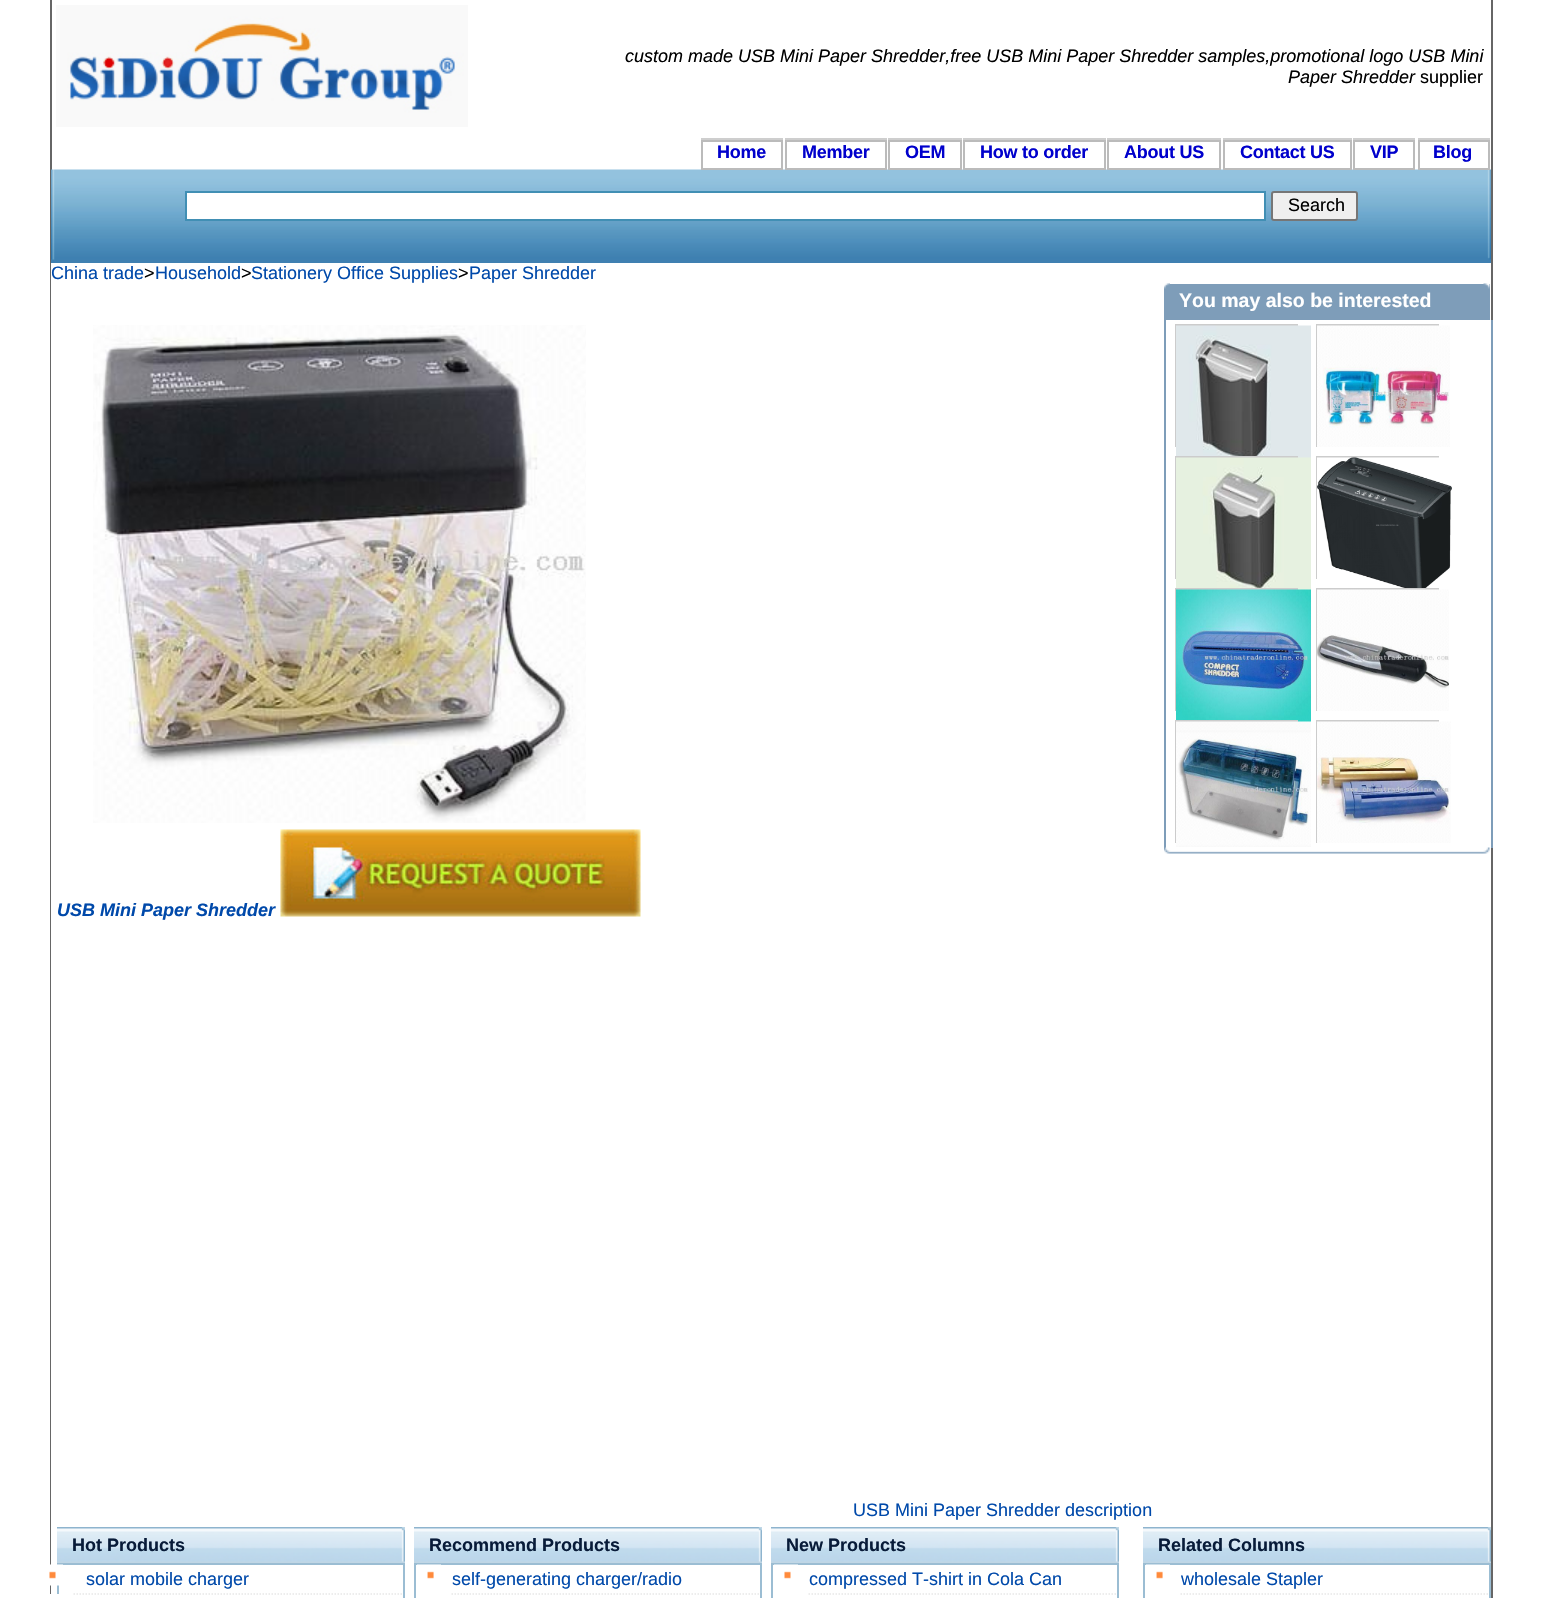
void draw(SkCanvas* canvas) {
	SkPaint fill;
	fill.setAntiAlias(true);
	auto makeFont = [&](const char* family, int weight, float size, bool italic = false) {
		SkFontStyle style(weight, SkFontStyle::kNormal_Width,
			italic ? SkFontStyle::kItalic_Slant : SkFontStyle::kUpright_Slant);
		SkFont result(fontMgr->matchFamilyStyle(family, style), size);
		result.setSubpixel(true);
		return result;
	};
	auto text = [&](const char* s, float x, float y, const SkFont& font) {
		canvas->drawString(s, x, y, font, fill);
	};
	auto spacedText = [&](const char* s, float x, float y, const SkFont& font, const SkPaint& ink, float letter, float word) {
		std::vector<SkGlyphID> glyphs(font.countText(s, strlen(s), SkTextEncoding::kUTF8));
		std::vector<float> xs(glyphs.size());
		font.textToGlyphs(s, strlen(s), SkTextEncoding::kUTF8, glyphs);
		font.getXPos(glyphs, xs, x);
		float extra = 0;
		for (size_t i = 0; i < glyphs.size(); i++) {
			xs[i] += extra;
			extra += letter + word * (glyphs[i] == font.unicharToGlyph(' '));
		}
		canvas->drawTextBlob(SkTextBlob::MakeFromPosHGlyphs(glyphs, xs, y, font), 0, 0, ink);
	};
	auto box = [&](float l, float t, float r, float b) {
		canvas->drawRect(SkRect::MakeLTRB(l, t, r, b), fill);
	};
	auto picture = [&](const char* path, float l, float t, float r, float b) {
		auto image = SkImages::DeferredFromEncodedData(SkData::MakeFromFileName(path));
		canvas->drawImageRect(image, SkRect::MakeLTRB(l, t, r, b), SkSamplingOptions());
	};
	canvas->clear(0xFFFFFFFF);
	fill.setColor(0xFF666666);
	box(1491, 0, 1493, 1598);
	box(50, 0, 52, 1598);
	picture("image0.png", 56, 5, 468, 127);
	fill.setColor(0xFFCECECE);
	box(701, 138, 783, 140);
	fill.setColor(0xFF3F80B1);
	box(51, 259, 1491, 263);
	picture("image1.png", 51, 169, 1491, 260);
	fill.setStyle(SkPaint::kStroke_Style);
	fill.setStrokeWidth(2);
	fill.setColor(0xFFBBBBBB);
	canvas->drawRect(SkRect::MakeLTRB(702, 141, 782, 169), fill);
	fill.setStyle(SkPaint::kFill_Style);
	fill.setColor(0xFFCECECE);
	box(785, 138, 887, 140);
	fill.setStyle(SkPaint::kStroke_Style);
	fill.setColor(0xFFBBBBBB);
	canvas->drawRect(SkRect::MakeLTRB(786, 141, 886, 169), fill);
	fill.setStyle(SkPaint::kFill_Style);
	fill.setColor(0xFFCECECE);
	box(888, 138, 962, 140);
	fill.setStyle(SkPaint::kStroke_Style);
	fill.setColor(0xFFBBBBBB);
	canvas->drawRect(SkRect::MakeLTRB(889, 141, 961, 169), fill);
	fill.setStyle(SkPaint::kFill_Style);
	fill.setColor(0xFFCECECE);
	box(963, 138, 1106, 140);
	fill.setStyle(SkPaint::kStroke_Style);
	fill.setColor(0xFFBBBBBB);
	canvas->drawRect(SkRect::MakeLTRB(964, 141, 1105, 169), fill);
	fill.setStyle(SkPaint::kFill_Style);
	fill.setColor(0xFFCECECE);
	box(1107, 138, 1221, 140);
	fill.setStyle(SkPaint::kStroke_Style);
	fill.setColor(0xFFBBBBBB);
	canvas->drawRect(SkRect::MakeLTRB(1108, 141, 1220, 169), fill);
	fill.setStyle(SkPaint::kFill_Style);
	fill.setColor(0xFFCECECE);
	box(1223, 138, 1352, 140);
	fill.setStyle(SkPaint::kStroke_Style);
	fill.setColor(0xFFBBBBBB);
	canvas->drawRect(SkRect::MakeLTRB(1224, 141, 1351, 169), fill);
	fill.setStyle(SkPaint::kFill_Style);
	fill.setColor(0xFFCECECE);
	box(1353, 138, 1415, 140);
	fill.setStyle(SkPaint::kStroke_Style);
	fill.setColor(0xFFBBBBBB);
	canvas->drawRect(SkRect::MakeLTRB(1354, 141, 1414, 169), fill);
	fill.setStyle(SkPaint::kFill_Style);
	fill.setColor(0xFFCECECE);
	box(1418, 138, 1490, 140);
	fill.setStyle(SkPaint::kStroke_Style);
	fill.setColor(0xFFBBBBBB);
	canvas->drawRect(SkRect::MakeLTRB(1419, 141, 1489, 169), fill);
	fill.setStyle(SkPaint::kFill_Style);
	fill.setColor(0xFFFFFFFF);
	canvas->drawRect(SkRect::MakeLTRB(186, 192, 1265, 220), fill);
	fill.setStyle(SkPaint::kStroke_Style);
	fill.setColor(0xFF418FB4);
	canvas->drawRect(SkRect::MakeLTRB(186, 192, 1265, 220), fill);
	fill.setStyle(SkPaint::kFill_Style);
	fill.setColor(0xFFEFEFEF);
	canvas->drawRoundRect(SkRect::MakeLTRB(1272, 192, 1357, 220), 2, 2, fill);
	fill.setStyle(SkPaint::kStroke_Style);
	fill.setColor(0xFF767676);
	canvas->drawRoundRect(SkRect::MakeLTRB(1272, 192, 1357, 220), 2, 2, fill);
	fill.setStyle(SkPaint::kFill_Style);
	fill.setColor(0xFFFFFFFF);
	box(51, 263, 52, 1598);
	fill.setColor(0xFF7E9DB9);
	box(1164, 284, 1490, 320);
	picture("image2.png", 1483, 283, 1490, 289);
	picture("image3.png", 1164, 283, 1170, 289);
	box(1491, 320, 1493, 848);
	box(1164, 320, 1166, 848);
	fill.setStyle(SkPaint::kStroke_Style);
	fill.setColor(0xFFCCCCCC);
	canvas->drawRect(SkRect::MakeLTRB(1176, 325, 1297, 446), fill);
	picture("image4.png", 1176, 325, 1311, 458);
	canvas->drawRect(SkRect::MakeLTRB(1317, 325, 1438, 446), fill);
	picture("image5.png", 1317, 325, 1450, 447);
	canvas->drawRect(SkRect::MakeLTRB(1176, 457, 1297, 578), fill);
	picture("image6.png", 1176, 457, 1311, 590);
	canvas->drawRect(SkRect::MakeLTRB(1317, 457, 1438, 578), fill);
	picture("image7.png", 1317, 457, 1452, 593);
	canvas->drawRect(SkRect::MakeLTRB(1176, 589, 1297, 710), fill);
	picture("image8.png", 1176, 589, 1311, 722);
	canvas->drawRect(SkRect::MakeLTRB(1317, 589, 1438, 710), fill);
	picture("image9.png", 1317, 589, 1449, 711);
	canvas->drawRect(SkRect::MakeLTRB(1176, 721, 1297, 842), fill);
	picture("image10.png", 1176, 721, 1311, 847);
	canvas->drawRect(SkRect::MakeLTRB(1317, 721, 1438, 842), fill);
	picture("image11.png", 1317, 721, 1451, 843);
	picture("image12.png", 1164, 847, 1490, 854);
	picture("image13.png", 93, 325, 586, 823);
	picture("image14.png", 280, 829, 641, 917);
	fill.setStyle(SkPaint::kFill_Style);
	fill.setColor(0xFFC0D6E5);
	box(57, 1527, 405, 1563);
	picture("image15.png", 57, 1527, 405, 1562);
	fill.setStyle(SkPaint::kStroke_Style);
	fill.setColor(0xFF9BBDD3);
	canvas->drawRect(SkRect::MakeLTRB(58, 1564, 404, 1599), fill);
	fill.setStrokeWidth(1.5f);
	fill.setColor(0xFFE7E7E7);
	fill.setPathEffect(SkDashPathEffect::Make({{1.5f, 1.5f}}, 0));
	canvas->drawPath(SkPathBuilder().moveTo(73.5f, 1594).lineTo(403.5f, 1594).detach(), fill);
	fill.setPathEffect(nullptr);
	picture("image16.png", 49, 1564, 63, 1586);
	fill.setStyle(SkPaint::kFill_Style);
	fill.setColor(0xFFFFFFFF);
	box(50, 1594, 59, 1598);
	fill.setColor(0xFFC0D6E5);
	box(414, 1527, 762, 1563);
	picture("image17.png", 414, 1527, 762, 1562);
	fill.setStyle(SkPaint::kStroke_Style);
	fill.setStrokeWidth(2);
	fill.setColor(0xFF9BBDD3);
	canvas->drawRect(SkRect::MakeLTRB(415, 1564, 761, 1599), fill);
	fill.setStrokeWidth(1.5f);
	fill.setColor(0xFFE7E7E7);
	fill.setPathEffect(SkDashPathEffect::Make({{1.5f, 1.5f}}, 0));
	canvas->drawPath(SkPathBuilder().moveTo(451.5f, 1594).lineTo(760.5f, 1594).detach(), fill);
	fill.setPathEffect(nullptr);
	picture("image18.png", 417, 1564, 441, 1579);
	fill.setStyle(SkPaint::kFill_Style);
	fill.setColor(0xFFC0D6E5);
	box(771, 1527, 1119, 1563);
	picture("image15.png", 771, 1527, 1119, 1562);
	fill.setStyle(SkPaint::kStroke_Style);
	fill.setStrokeWidth(2);
	fill.setColor(0xFF9BBDD3);
	canvas->drawRect(SkRect::MakeLTRB(772, 1564, 1118, 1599), fill);
	fill.setStrokeWidth(1.5f);
	fill.setColor(0xFFE7E7E7);
	fill.setPathEffect(SkDashPathEffect::Make({{1.5f, 1.5f}}, 0));
	canvas->drawPath(SkPathBuilder().moveTo(808.5f, 1594).lineTo(1117.5f, 1594).detach(), fill);
	fill.setPathEffect(nullptr);
	picture("image19.png", 774, 1564, 798, 1579);
	fill.setStyle(SkPaint::kFill_Style);
	fill.setColor(0xFFC0D6E5);
	box(1143, 1527, 1491, 1563);
	picture("image20.png", 1143, 1527, 1491, 1562);
	fill.setStyle(SkPaint::kStroke_Style);
	fill.setStrokeWidth(2);
	fill.setColor(0xFF9BBDD3);
	canvas->drawRect(SkRect::MakeLTRB(1144, 1564, 1490, 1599), fill);
	fill.setStrokeWidth(1.5f);
	fill.setColor(0xFFE7E7E7);
	fill.setPathEffect(SkDashPathEffect::Make({{1.5f, 1.5f}}, 0));
	canvas->drawPath(SkPathBuilder().moveTo(1180.5f, 1594).lineTo(1489.5f, 1594).detach(), fill);
	fill.setPathEffect(nullptr);
	picture("image18.png", 1146, 1564, 1170, 1579);
	auto font1 = makeFont("Liberation Sans", 400, 18, true);
	fill.setStyle(SkPaint::kFill_Style);
	fill.setColor(0xFF000000);
	text("custom made USB Mini Paper Shredder,free USB Mini Paper Shredder samples,promotional logo USB Mini", 625, 62, font1);
	text("Paper Shredder", 1288, 83, font1);
	auto font2 = makeFont("Liberation Sans", 400, 18);
	text("supplier", 1420, 83, font2);
	auto font3 = makeFont("Liberation Sans", 700, 18);
	fill.setColor(0xFF0000CC);
	spacedText("Home", 717, 158, font3, fill, -0.25f, 0);
	spacedText("Member", 802, 158, font3, fill, -0.25f, 0);
	spacedText("OEM", 905, 158, font3, fill, -0.25f, 0);
	spacedText("How to order", 980, 158, font3, fill, -0.25f, 0);
	spacedText("About US", 1124, 158, font3, fill, -0.25f, 0);
	spacedText("Contact US", 1240, 158, font3, fill, -0.25f, 0);
	spacedText("VIP", 1370, 158, font3, fill, -0.25f, 0);
	spacedText("Blog", 1433, 158, font3, fill, -0.25f, 0);
	fill.setColor(0xFF000000);
	text("Search", 1288, 211, font2);
	fill.setColor(0xFF0049AA);
	text("China trade", 51, 279, font2);
	fill.setColor(0xFF000000);
	text(">", 144, 279, font2);
	fill.setColor(0xFF0049AA);
	text("Household", 155, 279, font2);
	fill.setColor(0xFF000000);
	text(">", 241, 279, font2);
	fill.setColor(0xFF0049AA);
	text("Stationery Office Supplies", 251, 279, font2);
	fill.setColor(0xFF000000);
	text(">", 458, 279, font2);
	fill.setColor(0xFF0049AA);
	text("Paper Shredder", 469, 279, font2);
	auto font4 = makeFont("Liberation Sans", 700, 19.5f);
	fill.setColor(0xFFFFFFFF);
	text("You may also be interested", 1179, 307, font4);
	auto font5 = makeFont("Liberation Sans", 700, 18, true);
	fill.setColor(0xFF0049AA);
	text("USB Mini Paper Shredder", 57, 916, font5);
	text("USB Mini Paper Shredder description", 853, 1516, font2);
	fill.setColor(0xFF081B39);
	text("Hot Products", 72, 1551, font3);
	fill.setColor(0xFF0049AA);
	text("solar mobile charger", 86, 1585, font2);
	fill.setColor(0xFF081B39);
	text("Recommend Products", 429, 1551, font3);
	fill.setColor(0xFF0049AA);
	text("self-generating charger/radio", 452, 1585, font2);
	fill.setColor(0xFF081B39);
	text("New Products", 786, 1551, font3);
	fill.setColor(0xFF0049AA);
	text("compressed T-shirt in Cola Can", 809, 1585, font2);
	fill.setColor(0xFF081B39);
	text("Related Columns", 1158, 1551, font3);
	fill.setColor(0xFF0049AA);
	text("wholesale Stapler", 1181, 1585, font2);
}
